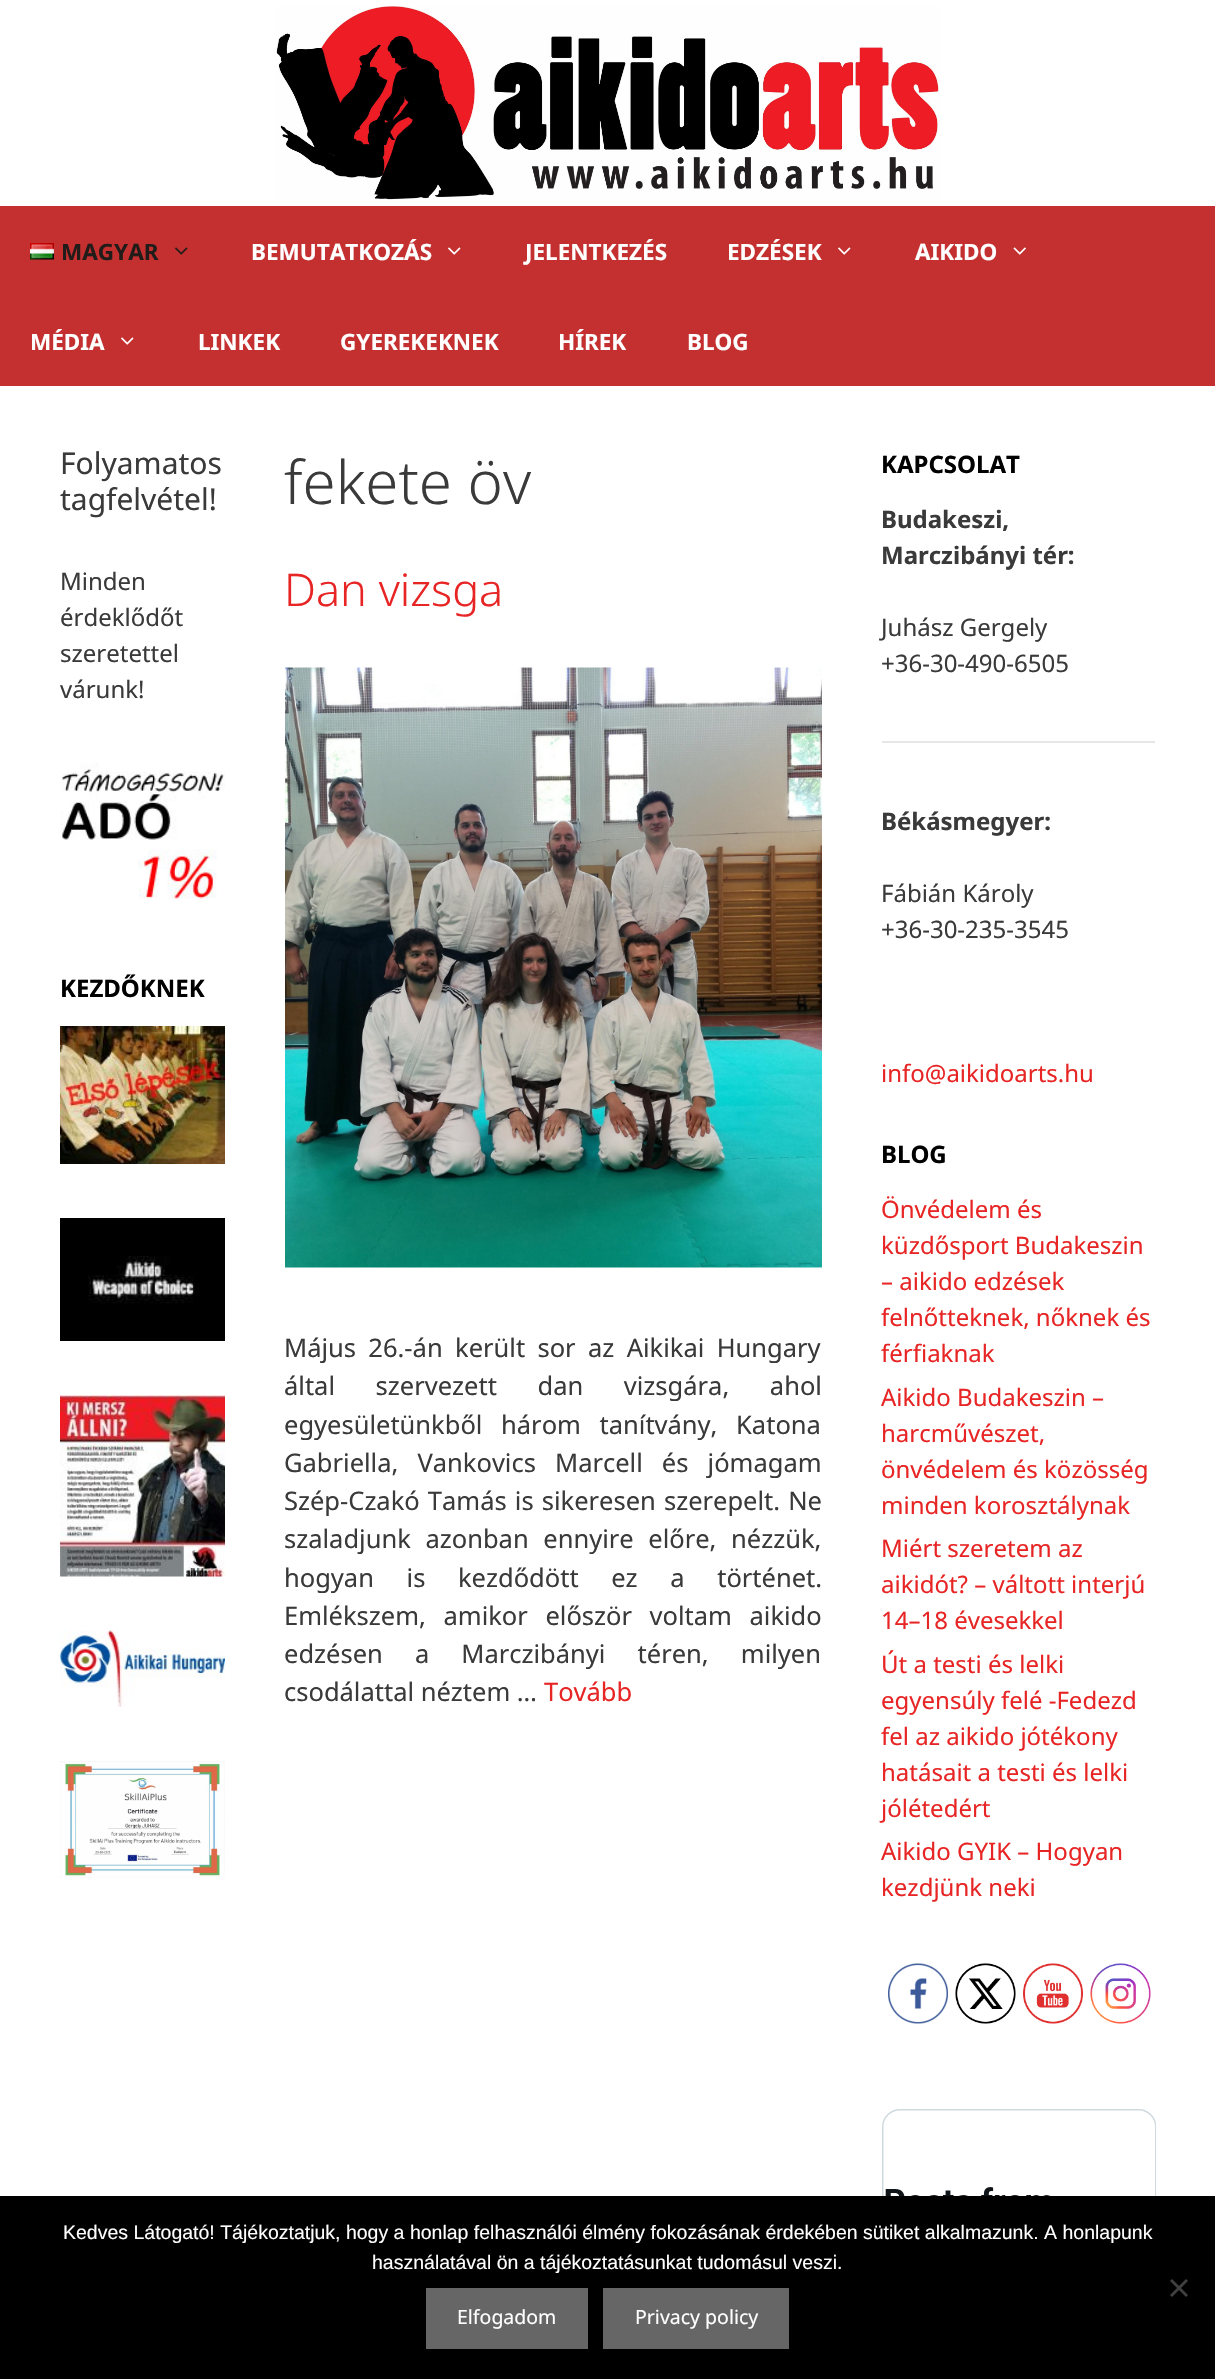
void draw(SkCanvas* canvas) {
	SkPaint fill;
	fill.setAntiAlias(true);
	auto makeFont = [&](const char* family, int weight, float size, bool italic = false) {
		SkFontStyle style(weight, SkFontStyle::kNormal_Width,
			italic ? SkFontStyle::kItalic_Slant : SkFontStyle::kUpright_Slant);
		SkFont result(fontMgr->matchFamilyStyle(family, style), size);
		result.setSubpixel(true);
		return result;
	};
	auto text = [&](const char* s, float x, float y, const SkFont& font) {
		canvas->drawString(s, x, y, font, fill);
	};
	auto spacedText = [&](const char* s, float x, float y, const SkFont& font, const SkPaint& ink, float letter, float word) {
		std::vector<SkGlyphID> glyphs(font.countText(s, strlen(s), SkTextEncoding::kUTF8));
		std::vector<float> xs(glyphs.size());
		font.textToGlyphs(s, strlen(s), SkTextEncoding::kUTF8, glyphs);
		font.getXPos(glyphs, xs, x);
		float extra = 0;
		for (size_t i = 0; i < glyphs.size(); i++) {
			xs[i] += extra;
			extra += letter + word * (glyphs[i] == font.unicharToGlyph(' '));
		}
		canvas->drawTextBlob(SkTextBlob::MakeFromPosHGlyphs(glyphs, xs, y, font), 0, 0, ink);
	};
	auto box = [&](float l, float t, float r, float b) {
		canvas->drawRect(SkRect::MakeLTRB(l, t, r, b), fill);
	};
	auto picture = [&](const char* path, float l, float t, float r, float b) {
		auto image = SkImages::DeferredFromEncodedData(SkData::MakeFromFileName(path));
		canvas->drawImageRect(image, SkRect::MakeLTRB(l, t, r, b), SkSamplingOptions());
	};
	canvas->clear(0xFFC42F2F);
	fill.setColor(0xFFFFFFFF);
	box(0, 0, 1215, 206);
	picture("image0.png", 276, 6, 940, 200);
	picture("image1.png", 30, 243, 54, 260);
	picture("image2.png", 175, 247, 188, 255);
	picture("image3.png", 448, 247, 461, 255);
	picture("image3.png", 838, 247, 851, 255);
	picture("image4.png", 1013, 247, 1026, 255);
	picture("image3.png", 121, 337, 134, 345);
	box(0, 386, 1215, 2196);
	picture("image5.png", 60, 763, 225, 899);
	picture("image6.png", 60, 1026, 225, 1164);
	picture("image7.png", 60, 1218, 225, 1341);
	picture("image8.png", 60, 1395, 225, 1577);
	picture("image9.png", 60, 1630, 225, 1707);
	picture("image10.png", 60, 1761, 225, 1878);
	picture("image11.png", 285, 667, 822, 1268);
	fill.setColor(0xFFE6E6E6);
	box(882, 741, 1155, 743);
	picture("image12.png", 888, 1963, 948, 2024);
	picture("image13.png", 955, 1963, 1016, 2024);
	picture("image14.png", 1023, 1963, 1083, 2024);
	picture("image15.png", 1090, 1963, 1151, 2024);
	picture("image16.png", 882, 2109, 1156, 2196);
	fill.setColor(0xFF000000);
	box(0, 2196, 1215, 2379);
	fill.setColor(0xFF404040);
	canvas->drawPath(SkPathBuilder().moveTo(1186, 2279).lineTo(1188, 2281).lineTo(1172, 2297).lineTo(1170, 2295).close().detach(), fill);
	canvas->drawPath(SkPathBuilder().moveTo(1170, 2281).lineTo(1172, 2279).lineTo(1188, 2295).lineTo(1186, 2297).close().detach(), fill);
	fill.setColor(0xFF666666);
	box(426, 2288, 588, 2349);
	box(603, 2288, 789, 2349);
	auto font1 = makeFont("Noto Sans", 700, 22.5f);
	fill.setColor(0xFF211C19);
	text("MAGYAR", 61, 260, font1);
	fill.setColor(0xFFFFFFFF);
	text("BEMUTATKOZÁS", 251, 260, font1);
	text("JELENTKEZÉS", 525, 260, font1);
	text("EDZÉSEK", 727, 260, font1);
	text("AIKIDO", 915, 260, font1);
	text("MÉDIA", 30, 350, font1);
	text("LINKEK", 198, 350, font1);
	text("GYEREKEKNEK", 340, 350, font1);
	text("HÍREK", 558, 350, font1);
	text("BLOG", 687, 350, font1);
	auto font2 = makeFont("Noto Sans", 400, 30);
	fill.setColor(0xFF3A3A3A);
	text("Folyamatos", 60, 474, font2);
	text("tagfelvétel!", 60, 510, font2);
	auto font3 = makeFont("Noto Sans", 400, 24);
	text("Minden", 60, 590, font3);
	text("érdeklődőt", 60, 626, font3);
	text("szeretettel", 60, 662, font3);
	text("várunk!", 60, 698, font3);
	auto font4 = makeFont("Noto Sans", 700, 24);
	fill.setColor(0xFF000000);
	text("KEZDŐKNEK", 60, 997, font4);
	auto font5 = makeFont("Noto Sans", 300, 60);
	fill.setColor(0xFF3A3A3A);
	text("fekete öv", 284, 504, font5);
	auto font6 = makeFont("Noto Sans", 300, 45);
	fill.setColor(0xFFE82525);
	text("Dan vizsga", 284, 606, font6);
	auto font7 = makeFont("Noto Sans", 400, 25.5f);
	fill.setColor(0xFF3A3A3A);
	spacedText("Május 26.-án került sor az Aikikai Hungary", 284, 1357, font7, fill, 0, 5.75f);
	spacedText("által szervezett dan vizsgára, ahol", 284, 1395, font7, fill, 0, 34);
	spacedText("egyesületünkből három tanítvány, Katona", 284, 1434, font7, fill, 0, 12);
	spacedText("Gabriella, Vankovics Marcell és jómagam", 284, 1472, font7, fill, 0, 12.5f);
	spacedText("Szép-Czakó Tamás is sikeresen szerepelt. Ne", 284, 1510, font7, fill, 0, 1.5f);
	spacedText("szaladjunk azonban ennyire előre, nézzük,", 284, 1548, font7, fill, 0, 8);
	spacedText("hogyan is kezdődött ez a történet.", 284, 1587, font7, fill, 0, 26);
	spacedText("Emlékszem, amikor először voltam aikido", 284, 1625, font7, fill, 0, 11);
	spacedText("edzésen a Marczibányi téren, milyen", 284, 1663, font7, fill, 0, 25.5f);
	text("csodálattal néztem …", 284, 1701, font7);
	fill.setColor(0xFFE82525);
	text("Tovább", 544, 1701, font7);
	fill.setColor(0xFF000000);
	text("KAPCSOLAT", 881, 473, font4);
	fill.setColor(0xFF3A3A3A);
	text("Budakeszi,", 881, 528, font4);
	text("Marczibányi tér:", 881, 564, font4);
	text("Juhász Gergely", 881, 636, font3);
	text("+36-30-490-6505", 881, 672, font3);
	text("Békásmegyer:", 881, 830, font4);
	text("Fábián Károly", 881, 902, font3);
	text("+36-30-235-3545", 881, 938, font3);
	fill.setColor(0xFFE82525);
	text("info@aikidoarts.hu", 881, 1082, font3);
	fill.setColor(0xFF000000);
	text("BLOG", 881, 1163, font4);
	fill.setColor(0xFFE82525);
	text("Önvédelem és", 881, 1218, font3);
	text("küzdősport Budakeszin", 881, 1254, font3);
	text("– aikido edzések", 881, 1290, font3);
	text("felnőtteknek, nőknek és", 881, 1326, font3);
	text("férfiaknak", 881, 1362, font3);
	text("Aikido Budakeszin –", 881, 1406, font3);
	text("harcművészet,", 881, 1442, font3);
	text("önvédelem és közösség", 881, 1478, font3);
	text("minden korosztálynak", 881, 1514, font3);
	text("Miért szeretem az", 881, 1557, font3);
	text("aikidót? – váltott interjú", 881, 1593, font3);
	text("14–18 évesekkel", 881, 1629, font3);
	text("Út a testi és lelki", 881, 1673, font3);
	text("egyensúly felé -Fedezd", 881, 1709, font3);
	text("fel az aikido jótékony", 881, 1745, font3);
	text("hatásait a testi és lelki", 881, 1781, font3);
	text("jólétedért", 881, 1817, font3);
	text("Aikido GYIK – Hogyan", 881, 1860, font3);
	text("kezdjünk neki", 881, 1896, font3);
	auto font8 = makeFont("Liberation Sans", 400, 19.5f);
	fill.setColor(0xFFFFFFFF);
	text("Kedves Látogató! Tájékoztatjuk, hogy a honlap felhasználói élmény fokozásának érdekében sütiket alkalmazunk. A honlapunk", 63, 2239, font8);
	text("használatával ön a tájékoztatásunkat tudomásul veszi.", 372, 2269, font8);
	auto font9 = makeFont("Noto Sans", 400, 19.5f);
	text("Elfogadom", 457, 2324, font9);
	text("Privacy policy", 635, 2324, font9);
}
